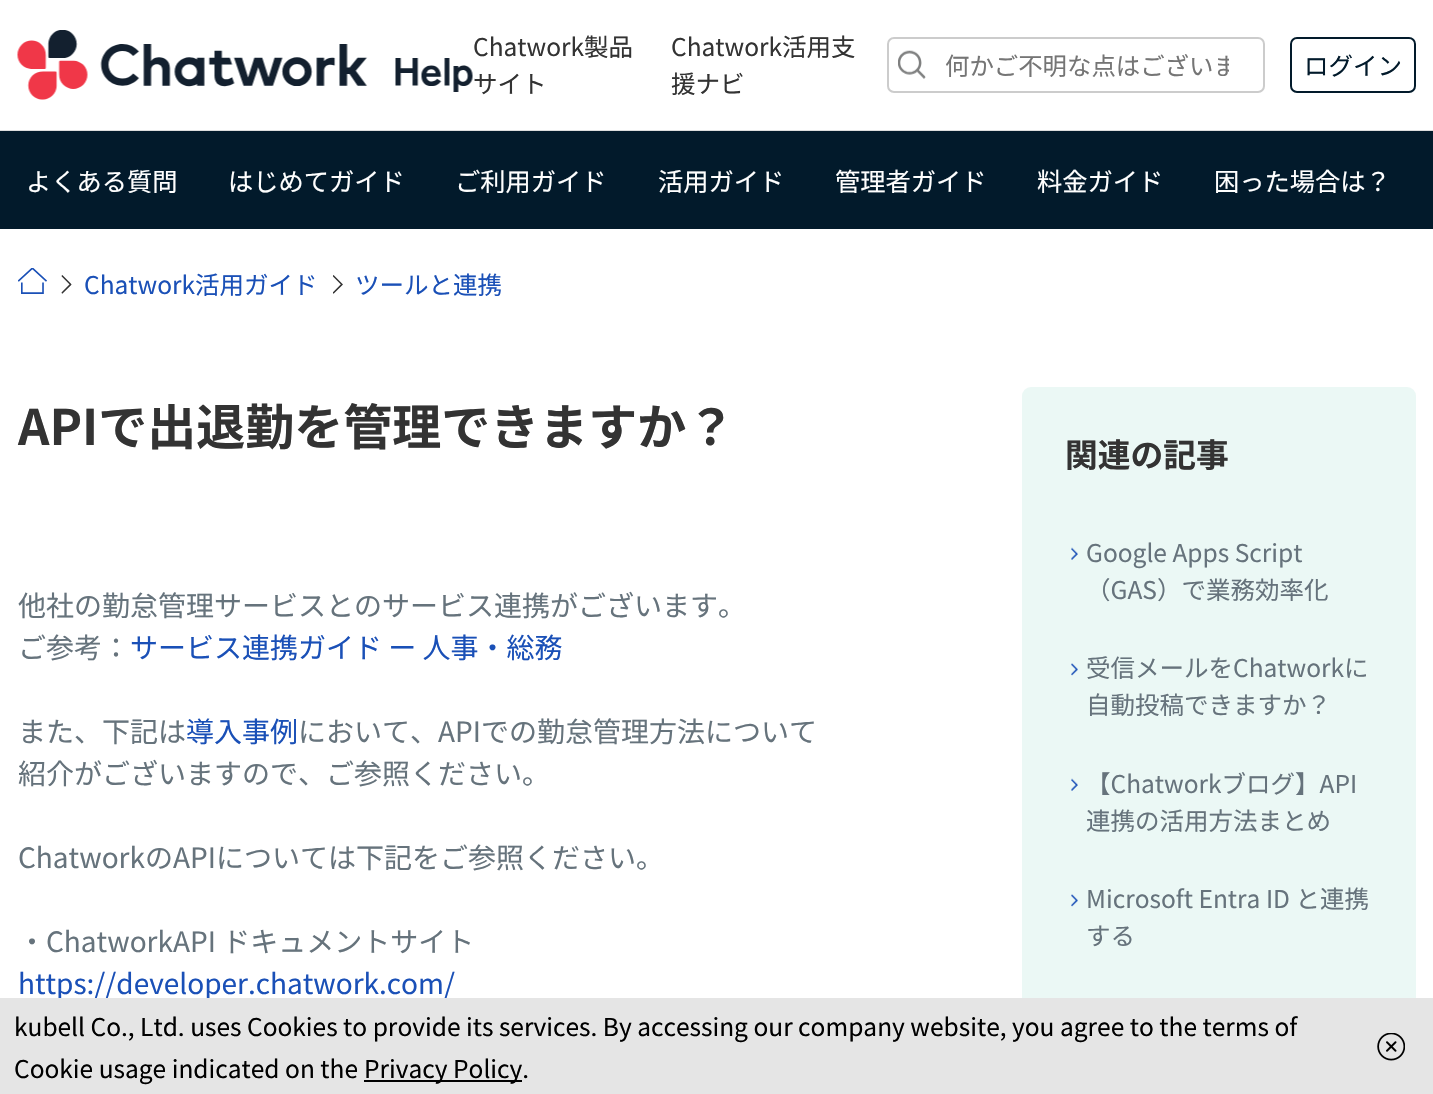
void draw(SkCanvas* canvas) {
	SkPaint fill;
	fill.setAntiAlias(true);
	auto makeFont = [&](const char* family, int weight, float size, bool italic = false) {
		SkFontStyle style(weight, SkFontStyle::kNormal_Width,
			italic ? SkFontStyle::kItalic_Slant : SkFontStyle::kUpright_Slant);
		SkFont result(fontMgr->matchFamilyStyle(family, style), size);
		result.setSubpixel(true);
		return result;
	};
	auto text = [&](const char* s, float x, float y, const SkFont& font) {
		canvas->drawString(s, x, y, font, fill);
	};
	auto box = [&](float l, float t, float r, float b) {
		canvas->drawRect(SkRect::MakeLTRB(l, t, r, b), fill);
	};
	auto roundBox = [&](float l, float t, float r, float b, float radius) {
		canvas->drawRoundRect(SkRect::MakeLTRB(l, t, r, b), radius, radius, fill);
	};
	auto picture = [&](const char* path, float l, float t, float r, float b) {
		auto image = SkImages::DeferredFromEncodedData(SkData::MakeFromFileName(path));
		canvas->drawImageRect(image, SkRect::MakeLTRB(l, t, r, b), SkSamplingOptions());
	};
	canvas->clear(0xFFFFFFFF);
	fill.setColor(0xFFDDDDDD);
	box(0, 130, 1433, 131);
	picture("image0.png", 17, 30, 473, 100);
	fill.setStyle(SkPaint::kStroke_Style);
	fill.setStrokeWidth(2);
	fill.setColor(0xFFCCCCCC);
	canvas->drawRoundRect(SkRect::MakeLTRB(888, 38, 1264, 92), 6, 6, fill);
	picture("image1.png", 898, 50, 926, 79);
	fill.setColor(0xFF021A2B);
	canvas->drawRoundRect(SkRect::MakeLTRB(1291, 38, 1415, 92), 6, 6, fill);
	fill.setStyle(SkPaint::kFill_Style);
	box(0, 131, 1433, 229);
	picture("image2.png", 18, 268, 47, 294);
	picture("image3.png", 61, 275, 72, 294);
	picture("image4.png", 333, 275, 343, 294);
	fill.setColor(0xFFEBF8F5);
	roundBox(1022, 387, 1416, 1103, 9);
	picture("image5.png", 1071, 547, 1078, 560);
	picture("image6.png", 1071, 663, 1078, 676);
	picture("image7.png", 1071, 778, 1078, 791);
	picture("image6.png", 1071, 894, 1078, 907);
	auto font1 = makeFont("Noto Sans JP", 400, 24.5f);
	fill.setColor(0xFF333333);
	text("Chatwork製品", 473, 56, font1);
	text("サイト", 473, 93, font1);
	text("Chatwork活用支", 671, 56, font1);
	text("援ナビ", 671, 93, font1);
	canvas->save();
	canvas->clipRect(SkRect::MakeLTRB(945, 47, 1229, 82));
	auto font2 = makeFont("Noto Sans JP", 400, 24.4f);
	fill.setColor(0xFF757575);
	text("何かご不明な点はございま", 945, 75, font2);
	canvas->restore();
	fill.setColor(0xFF021A2B);
	text("ログイン", 1304, 75, font1);
	auto font3 = makeFont("Noto Sans JP", 400, 25.25f);
	fill.setColor(0xFFFFFFFF);
	text("よくある質問", 26, 191, font3);
	text("はじめてガイド", 228, 191, font3);
	text("ご利用ガイド", 455, 191, font3);
	text("活用ガイド", 658, 191, font3);
	text("管理者ガイド", 835, 191, font3);
	text("料金ガイド", 1037, 191, font3);
	text("困った場合は？", 1214, 191, font3);
	fill.setColor(0xFF1A50B7);
	text("Chatwork活用ガイド", 84, 294, font1);
	text("ツールと連携", 355, 294, font1);
	auto font4 = makeFont("Noto Sans JP", 700, 49);
	fill.setColor(0xFF333333);
	text("APIで出退勤を管理できますか？", 18, 445, font4);
	auto font5 = makeFont("Noto Sans JP", 400, 28);
	fill.setColor(0xFF66737C);
	text("他社の勤怠管理サービスとのサービス連携がございます。", 18, 616, font5);
	text("ご参考：", 18, 658, font5);
	fill.setColor(0xFF1A50B7);
	text("サービス連携ガイド ー 人事・総務", 130, 658, font5);
	fill.setColor(0xFF66737C);
	text("また、下記は", 18, 742, font5);
	fill.setColor(0xFF1A50B7);
	text("導入事例", 186, 742, font5);
	fill.setColor(0xFF66737C);
	text("において、APIでの勤怠管理方法について", 298, 742, font5);
	text("紹介がございますので、ご参照ください。", 18, 784, font5);
	text("ChatworkのAPIについては下記をご参照ください。", 18, 868, font5);
	text("・ChatworkAPI ドキュメントサイト", 18, 952, font5);
	fill.setColor(0xFF1A50B7);
	text("https://developer.chatwork.com/", 18, 994, font5);
	auto font6 = makeFont("Noto Sans JP", 700, 32.75f);
	fill.setColor(0xFF333333);
	text("関連の記事", 1065, 467, font6);
	fill.setColor(0xFF66737C);
	text("Google Apps Script", 1086, 562, font1);
	text("（GAS）で業務効率化", 1086, 599, font1);
	text("受信メールをChatworkに", 1086, 677, font1);
	text("自動投稿できますか？", 1086, 714, font1);
	text("【Chatworkブログ】API", 1086, 793, font1);
	text("連携の活用方法まとめ", 1086, 830, font1);
	text("Microsoft Entra ID と連携", 1086, 908, font1);
	text("する", 1086, 945, font1);
	fill.setColor(0xFFE5E5E5);
	box(0, 998, 1433, 1094);
	fill.setColor(0xFF000000);
	text("kubell Co., Ltd. uses Cookies to provide its services. By accessing our company website, you agree to the terms of", 14, 1036, font1);
	text("Cookie usage indicated on the", 14, 1078, font1);
	box(364, 1080, 522, 1082);
	text("Privacy Policy.", 364, 1078, font1);
	picture("image8.png", 1377, 1033, 1405, 1061);
}
